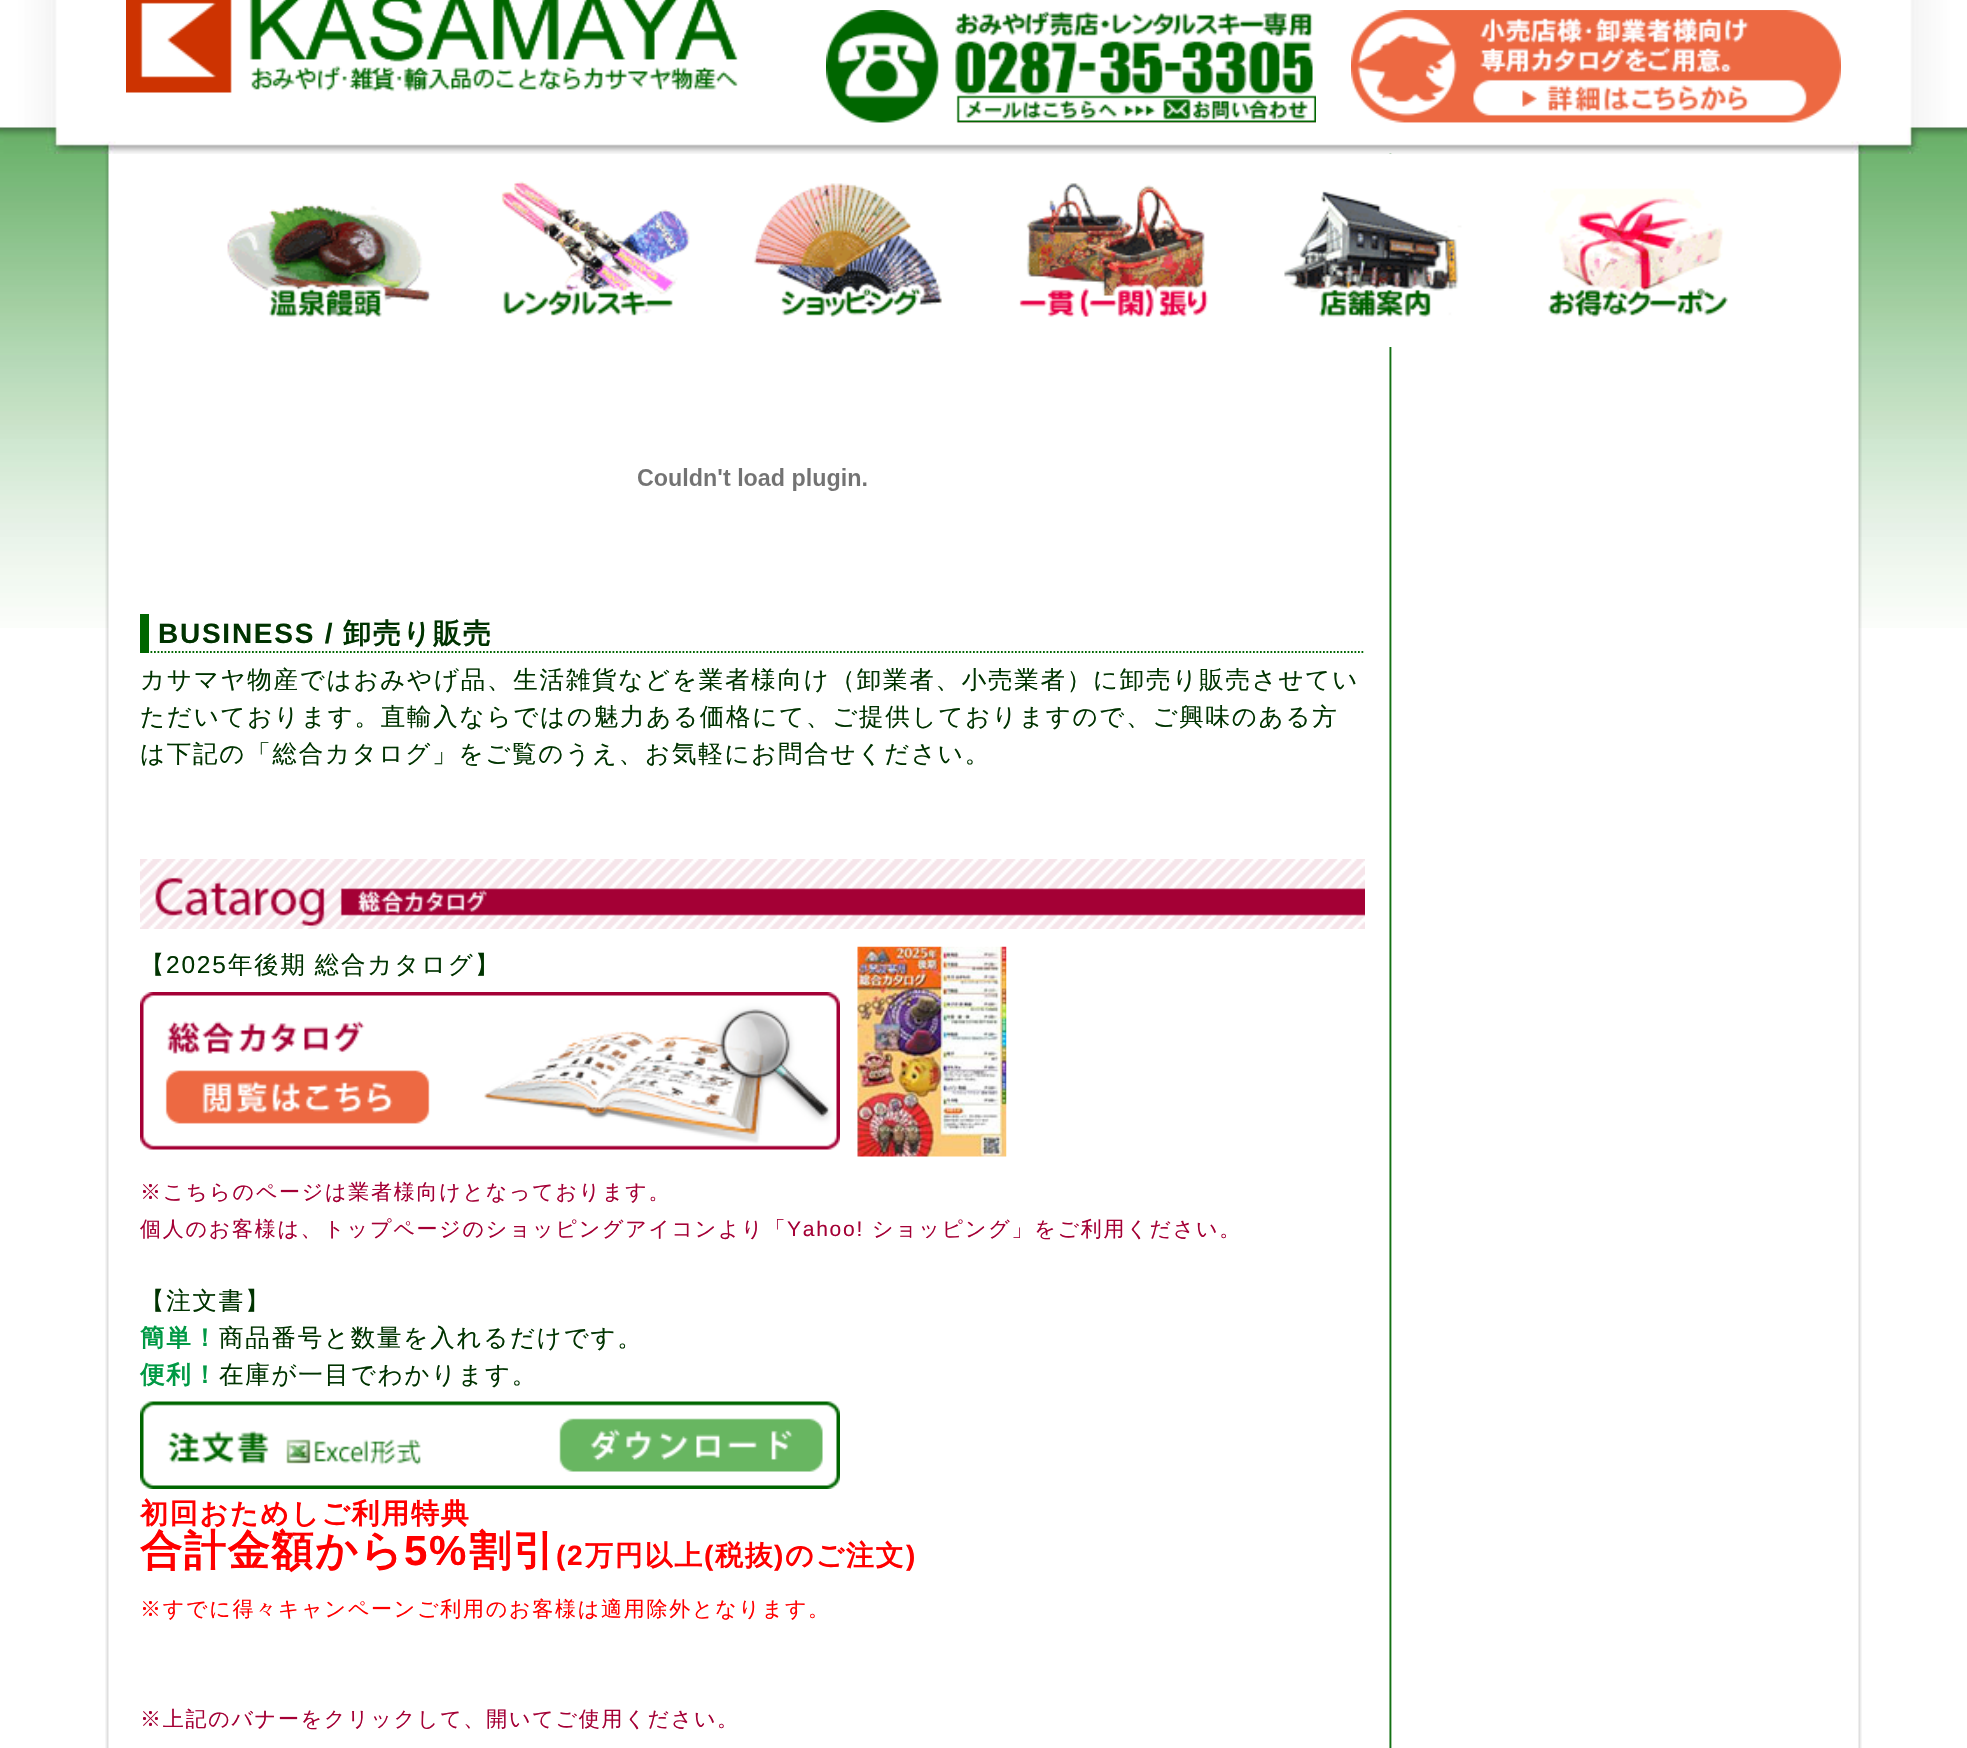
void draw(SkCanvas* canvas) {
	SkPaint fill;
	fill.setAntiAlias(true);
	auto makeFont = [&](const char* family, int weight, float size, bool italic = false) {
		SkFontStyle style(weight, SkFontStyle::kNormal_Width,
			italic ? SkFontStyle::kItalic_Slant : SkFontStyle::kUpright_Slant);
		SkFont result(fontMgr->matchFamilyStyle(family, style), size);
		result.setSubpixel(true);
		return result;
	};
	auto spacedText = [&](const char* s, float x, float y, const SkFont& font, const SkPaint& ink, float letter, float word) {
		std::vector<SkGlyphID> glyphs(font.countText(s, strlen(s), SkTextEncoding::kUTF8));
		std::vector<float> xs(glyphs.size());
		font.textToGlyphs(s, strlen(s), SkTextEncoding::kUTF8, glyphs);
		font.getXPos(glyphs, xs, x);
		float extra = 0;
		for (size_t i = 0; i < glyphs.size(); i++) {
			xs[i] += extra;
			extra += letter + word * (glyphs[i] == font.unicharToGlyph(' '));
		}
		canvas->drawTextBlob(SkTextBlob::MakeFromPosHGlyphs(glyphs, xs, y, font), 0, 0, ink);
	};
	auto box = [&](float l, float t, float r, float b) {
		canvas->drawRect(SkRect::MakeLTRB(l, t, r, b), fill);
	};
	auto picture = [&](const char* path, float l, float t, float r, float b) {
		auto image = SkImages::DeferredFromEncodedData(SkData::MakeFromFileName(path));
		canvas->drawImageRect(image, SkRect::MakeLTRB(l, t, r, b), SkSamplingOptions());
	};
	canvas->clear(0xFFFFFFFF);
	picture("image0.png", 0, 126, 1967, 628);
	picture("image1.png", 105, 153, 1862, 1748);
	picture("image2.png", 3, 0, 1964, 154);
	picture("image3.png", 126, 0, 738, 93);
	picture("image4.png", 826, 10, 1316, 123);
	picture("image5.png", 869, 10, 1316, 123);
	picture("image6.png", 1351, 10, 1841, 123);
	picture("image7.png", 1394, 10, 1807, 123);
	fill.setColor(0xFFFFFFFF);
	box(1389, 154, 1392, 347);
	picture("image8.png", 216, 174, 438, 317);
	picture("image9.png", 479, 174, 701, 317);
	picture("image10.png", 741, 174, 963, 317);
	picture("image11.png", 1004, 174, 1226, 317);
	picture("image12.png", 1266, 174, 1488, 317);
	picture("image13.png", 1529, 174, 1751, 317);
	picture("image14.png", 638, 468, 867, 491);
	fill.setStyle(SkPaint::kStroke_Style);
	fill.setStrokeWidth(1.8f);
	fill.setColor(0xFF006600);
	fill.setPathEffect(SkDashPathEffect::Make({{1.75f, 1.75f}}, 0));
	canvas->drawPath(SkPathBuilder().moveTo(140, 652).lineTo(1365, 652).detach(), fill);
	fill.setPathEffect(nullptr);
	fill.setStyle(SkPaint::kFill_Style);
	box(140, 614, 149, 653);
	picture("image15.png", 140, 859, 1365, 929);
	picture("image16.png", 140, 992, 840, 1150);
	picture("image17.png", 857, 946, 1007, 1157);
	picture("image18.png", 140, 1401, 840, 1489);
	auto font1 = makeFont("Liberation Sans", 700, 28);
	fill.setColor(0xFF003300);
	spacedText("BUSINESS /", 158, 643, font1, fill, 1.75f, 0);
	auto font2 = makeFont("WenQuanYi Zen Hei", 700, 28);
	spacedText("卸売り販売", 343, 643, font2, fill, 1.75f, 0);
	auto font3 = makeFont("WenQuanYi Zen Hei", 500, 24.5f);
	spacedText("カサマヤ物産ではおみやげ品、生活雑貨などを業者様向け（卸業者、小売業者）に卸売り販売させてい", 140, 688, font3, fill, 1.75f, 0);
	spacedText("ただいております。直輸入ならではの魅力ある価格にて、ご提供しておりますので、ご興味のある方", 140, 725, font3, fill, 1.75f, 0);
	spacedText("は下記の「総合カタログ」をご覧のうえ、お気軽にお問合せください。", 140, 762, font3, fill, 1.75f, 0);
	spacedText("【", 140, 973, font3, fill, 1.75f, 0);
	auto font4 = makeFont("Liberation Sans", 400, 24.5f);
	spacedText("2025", 166, 973, font4, fill, 1.75f, 0);
	spacedText("年後期 総合カタログ】", 228, 973, font3, fill, 1.75f, -1);
	auto font5 = makeFont("WenQuanYi Zen Hei", 500, 21);
	fill.setColor(0xFFA40035);
	spacedText("※こちらのページは業者様向けとなっております。", 140, 1199, font5, fill, 1.75f, 0);
	spacedText("個人のお客様は、トップページのショッピングアイコンより「", 140, 1236, font5, fill, 1.75f, 0);
	auto font6 = makeFont("Liberation Sans", 400, 21);
	spacedText("Yahoo!", 787, 1236, font6, fill, 1.75f, 0);
	spacedText("ショッピング」をご利用ください。", 872, 1236, font5, fill, 1.75f, 0);
	fill.setColor(0xFF003300);
	spacedText("【注文書】", 140, 1309, font3, fill, 1.75f, 0);
	auto font7 = makeFont("WenQuanYi Zen Hei", 700, 24.5f);
	fill.setColor(0xFF009944);
	spacedText("簡単！", 140, 1346, font7, fill, 1.75f, 0);
	fill.setColor(0xFF003300);
	spacedText("商品番号と数量を入れるだけです。", 219, 1346, font3, fill, 1.75f, 0);
	fill.setColor(0xFF009944);
	spacedText("便利！", 140, 1383, font7, fill, 1.75f, 0);
	fill.setColor(0xFF003300);
	spacedText("在庫が一目でわかります。", 219, 1383, font3, fill, 1.75f, 0);
	fill.setColor(0xFFFF0000);
	spacedText("初回おためしご利用特典", 140, 1523, font2, fill, 1.75f, 0);
	auto font8 = makeFont("WenQuanYi Zen Hei", 700, 42);
	spacedText("合計金額から", 140, 1565, font8, fill, 1.75f, 0);
	auto font9 = makeFont("Liberation Sans", 700, 42);
	spacedText("5%", 404, 1565, font9, fill, 1.75f, 0);
	spacedText("割引", 469, 1565, font8, fill, 1.75f, 0);
	spacedText("(2", 556, 1565, font1, fill, 1.75f, 0);
	spacedText("万円以上", 585, 1565, font2, fill, 1.75f, 0);
	spacedText("(", 704, 1565, font1, fill, 1.75f, 0);
	spacedText("税抜", 715, 1565, font2, fill, 1.75f, 0);
	spacedText(")", 774, 1565, font1, fill, 1.75f, 0);
	spacedText("のご注文", 785, 1565, font2, fill, 1.75f, 0);
	spacedText(")", 906, 1565, font1, fill, 1.75f, 0);
	spacedText("※すでに得々キャンペーンご利用のお客様は適用除外となります。", 140, 1616, font5, fill, 1.75f, 0);
	fill.setColor(0xFFA40035);
	spacedText("※上記のバナーをクリックして、開いてご使用ください。", 140, 1726, font5, fill, 1.75f, 0);
}
